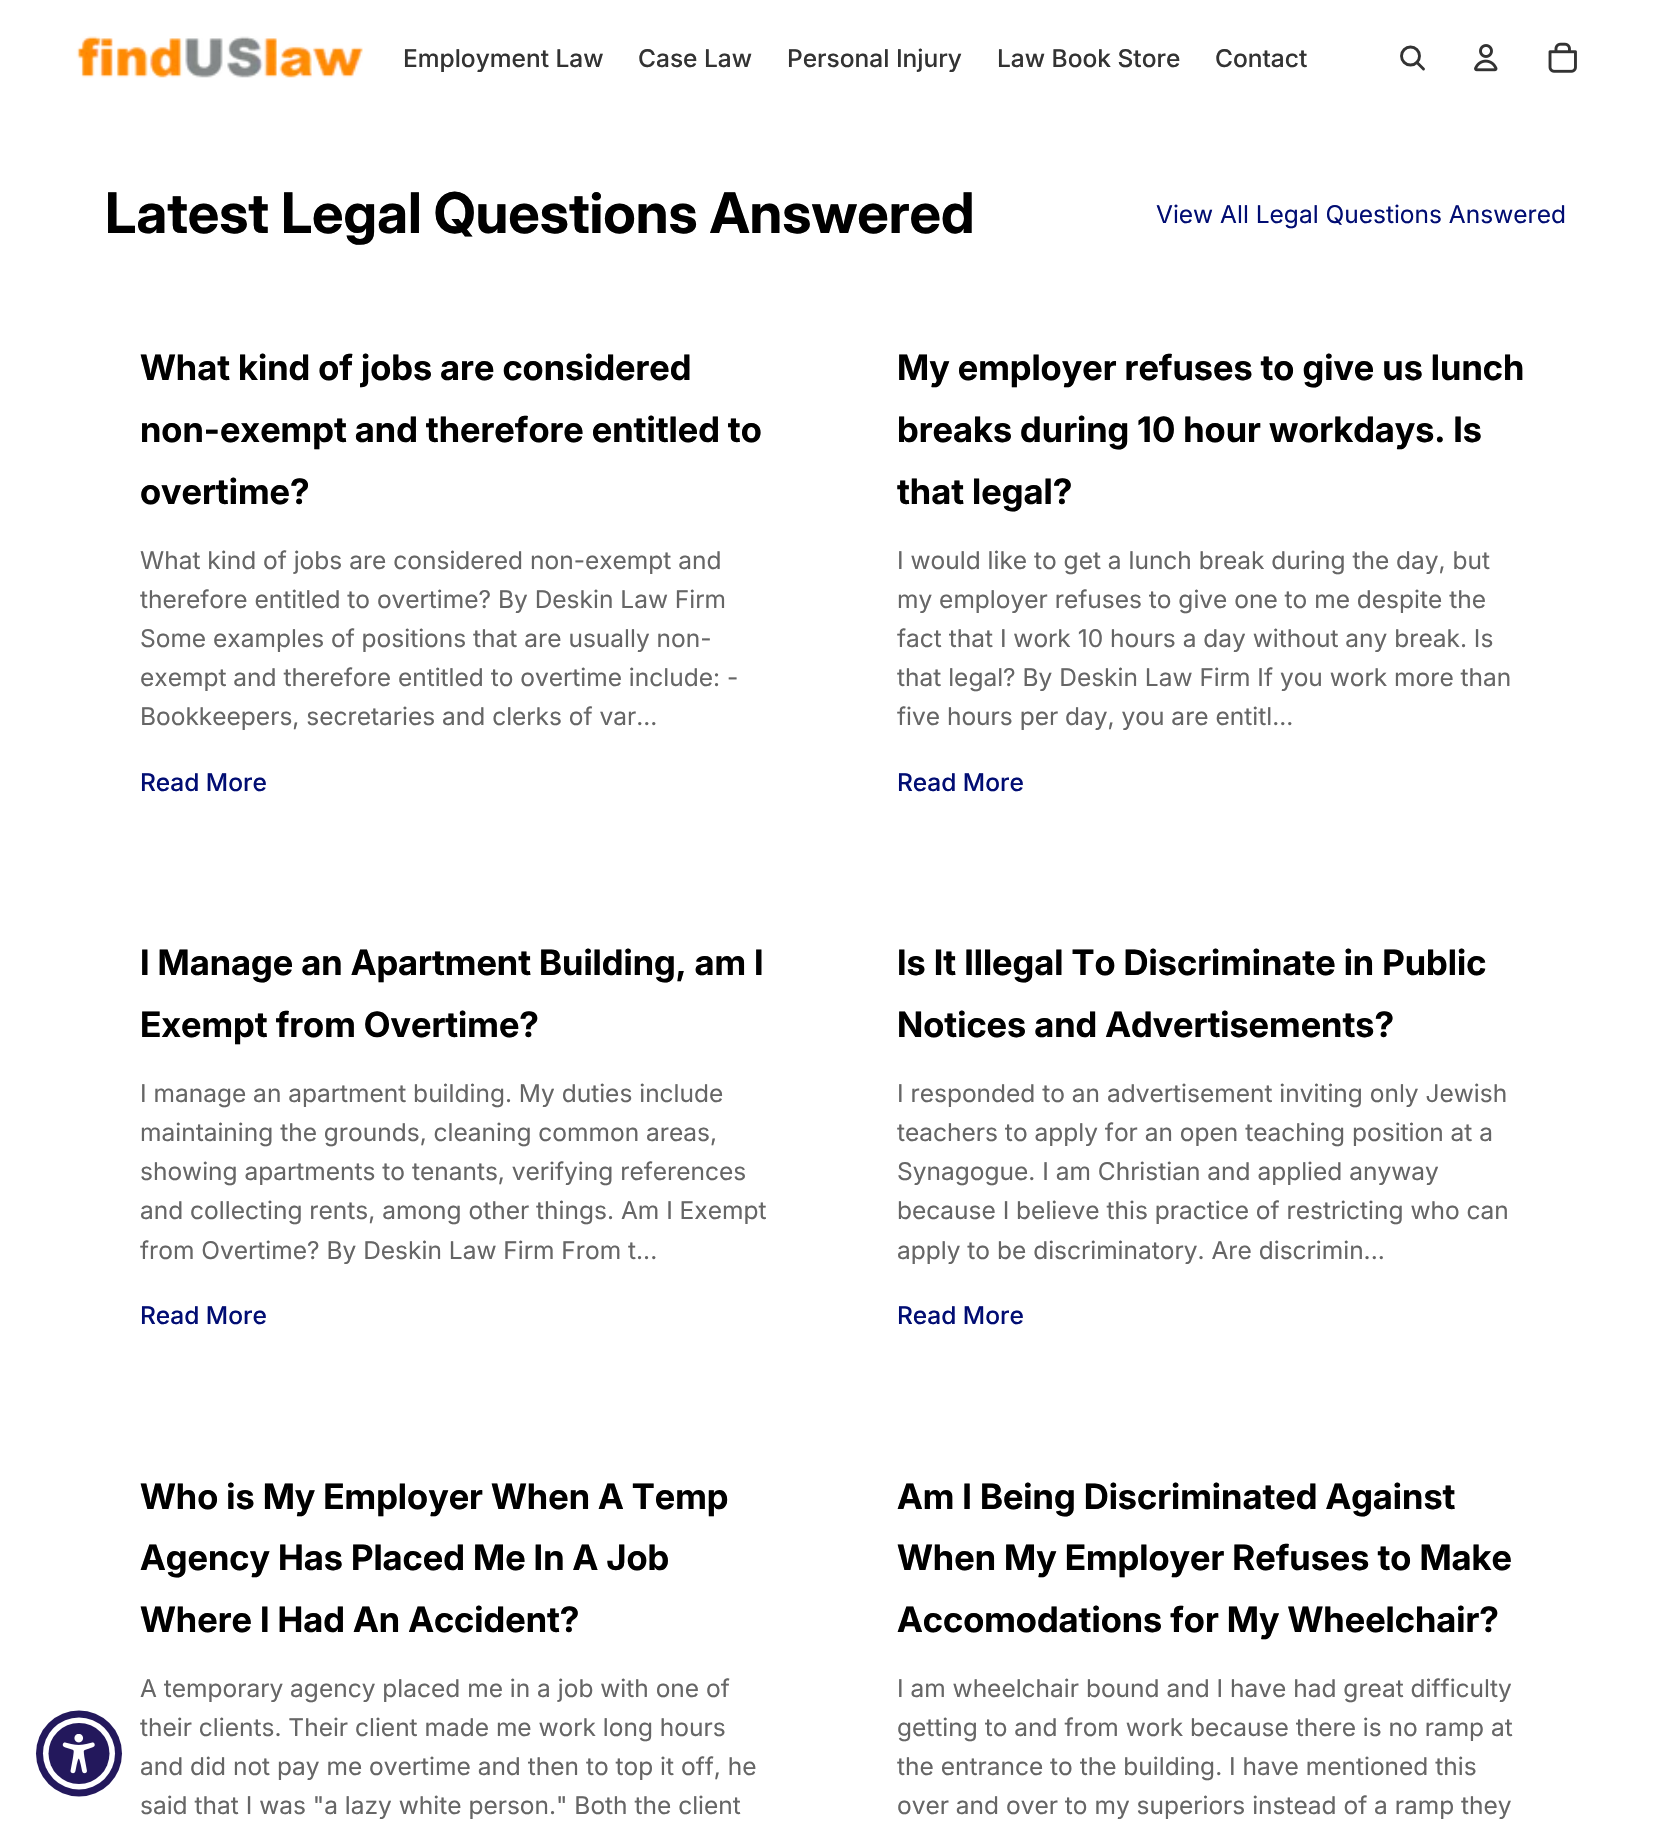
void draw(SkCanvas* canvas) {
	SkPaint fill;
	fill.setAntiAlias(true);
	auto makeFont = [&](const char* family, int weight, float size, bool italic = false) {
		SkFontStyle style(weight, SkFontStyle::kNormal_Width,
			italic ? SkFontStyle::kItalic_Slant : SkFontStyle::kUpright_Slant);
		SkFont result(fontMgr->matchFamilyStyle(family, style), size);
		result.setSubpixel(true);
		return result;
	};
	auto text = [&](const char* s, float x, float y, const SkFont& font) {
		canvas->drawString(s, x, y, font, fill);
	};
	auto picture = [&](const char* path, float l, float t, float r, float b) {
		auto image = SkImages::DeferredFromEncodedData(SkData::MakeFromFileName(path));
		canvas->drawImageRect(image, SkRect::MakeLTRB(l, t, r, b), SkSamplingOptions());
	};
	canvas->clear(0xFFFFFFFF);
	picture("image0.png", 76, 36, 363, 78);
	fill.setStyle(SkPaint::kStroke_Style);
	fill.setStrokeWidth(2.9f);
	fill.setColor(0xFF333333);
	canvas->drawCircle(1410.5f, 56, 9, fill);
	fill.setStrokeCap(SkPaint::kRound_Cap);
	fill.setStrokeJoin(SkPaint::kRound_Join);
	canvas->drawPath(SkPathBuilder().moveTo(1417, 62.5f).lineTo(1423.5f, 69).detach(), fill);
	picture("image1.png", 1474, 44, 1498, 72);
	picture("image2.png", 1548, 42, 1577, 73);
	fill.setStyle(SkPaint::kFill_Style);
	fill.setColor(0xFF23185C);
	canvas->drawCircle(79, 1753.5f, 43, fill);
	fill.setColor(0xFFFFFFFF);
	canvas->drawCircle(79, 1753.5f, 36, fill);
	fill.setColor(0xFF23185C);
	canvas->drawCircle(79, 1753.5f, 30.5f, fill);
	picture("image3.png", 62, 1734, 95, 1774);
	auto font1 = makeFont("Inter", 500, 24.5f);
	fill.setColor(0xFF333333);
	text("Employment Law", 403, 67, font1);
	text("Case Law", 638, 67, font1);
	text("Personal Injury", 787, 67, font1);
	text("Law Book Store", 997, 67, font1);
	text("Contact", 1215, 67, font1);
	auto font2 = makeFont("Inter", 700, 56);
	fill.setColor(0xFF000000);
	text("Latest Legal Questions Answered", 105, 233, font2);
	auto font3 = makeFont("Inter", 400, 24.5f);
	fill.setColor(0xFF010D73);
	text("View All Legal Questions Answered", 1156, 223, font3);
	auto font4 = makeFont("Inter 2", 700, 35);
	fill.setColor(0xFF000000);
	text("What kind of jobs are considered", 140, 380, font4);
	text("non-exempt and therefore entitled to", 140, 442, font4);
	text("overtime?", 140, 504, font4);
	fill.setColor(0xFF666666);
	text("What kind of jobs are considered non-exempt and", 140, 569, font3);
	text("therefore entitled to overtime? By Deskin Law Firm", 140, 608, font3);
	text("Some examples of positions that are usually non-", 140, 647, font3);
	text("exempt and therefore entitled to overtime include: -", 140, 686, font3);
	text("Bookkeepers, secretaries and clerks of var...", 140, 725, font3);
	fill.setColor(0xFF010D73);
	text("Read More", 140, 791, font1);
	fill.setColor(0xFF000000);
	text("My employer refuses to give us lunch", 897, 380, font4);
	text("breaks during 10 hour workdays. Is", 897, 442, font4);
	text("that legal?", 897, 504, font4);
	fill.setColor(0xFF666666);
	text("I would like to get a lunch break during the day, but", 897, 569, font3);
	text("my employer refuses to give one to me despite the", 897, 608, font3);
	text("fact that I work 10 hours a day without any break. Is", 897, 647, font3);
	text("that legal? By Deskin Law Firm If you work more than", 897, 686, font3);
	text("five hours per day, you are entitl...", 897, 725, font3);
	fill.setColor(0xFF010D73);
	text("Read More", 897, 791, font1);
	fill.setColor(0xFF000000);
	text("I Manage an Apartment Building, am I", 140, 975, font4);
	text("Exempt from Overtime?", 140, 1037, font4);
	fill.setColor(0xFF666666);
	text("I manage an apartment building. My duties include", 140, 1102, font3);
	text("maintaining the grounds, cleaning common areas,", 140, 1141, font3);
	text("showing apartments to tenants, verifying references", 140, 1180, font3);
	text("and collecting rents, among other things. Am I Exempt", 140, 1219, font3);
	text("from Overtime? By Deskin Law Firm From t...", 140, 1259, font3);
	fill.setColor(0xFF010D73);
	text("Read More", 140, 1324, font1);
	fill.setColor(0xFF000000);
	text("Is It Illegal To Discriminate in Public", 897, 975, font4);
	text("Notices and Advertisements?", 897, 1037, font4);
	fill.setColor(0xFF666666);
	text("I responded to an advertisement inviting only Jewish", 897, 1102, font3);
	text("teachers to apply for an open teaching position at a", 897, 1141, font3);
	text("Synagogue. I am Christian and applied anyway", 897, 1180, font3);
	text("because I believe this practice of restricting who can", 897, 1219, font3);
	text("apply to be discriminatory. Are discrimin...", 897, 1259, font3);
	fill.setColor(0xFF010D73);
	text("Read More", 897, 1324, font1);
	fill.setColor(0xFF000000);
	text("Who is My Employer When A Temp", 140, 1509, font4);
	text("Agency Has Placed Me In A Job", 140, 1570, font4);
	text("Where I Had An Accident?", 140, 1632, font4);
	fill.setColor(0xFF666666);
	text("A temporary agency placed me in a job with one of", 140, 1697, font3);
	text("their clients. Their client made me work long hours", 140, 1736, font3);
	text("and did not pay me overtime and then to top it off, he", 140, 1775, font3);
	text("said that I was \"a lazy white person.\" Both the client", 140, 1814, font3);
	fill.setColor(0xFF000000);
	text("Am I Being Discriminated Against", 897, 1509, font4);
	text("When My Employer Refuses to Make", 897, 1570, font4);
	text("Accomodations for My Wheelchair?", 897, 1632, font4);
	fill.setColor(0xFF666666);
	text("I am wheelchair bound and I have had great difficulty", 897, 1697, font3);
	text("getting to and from work because there is no ramp at", 897, 1736, font3);
	text("the entrance to the building. I have mentioned this", 897, 1775, font3);
	text("over and over to my superiors instead of a ramp they", 897, 1814, font3);
}
